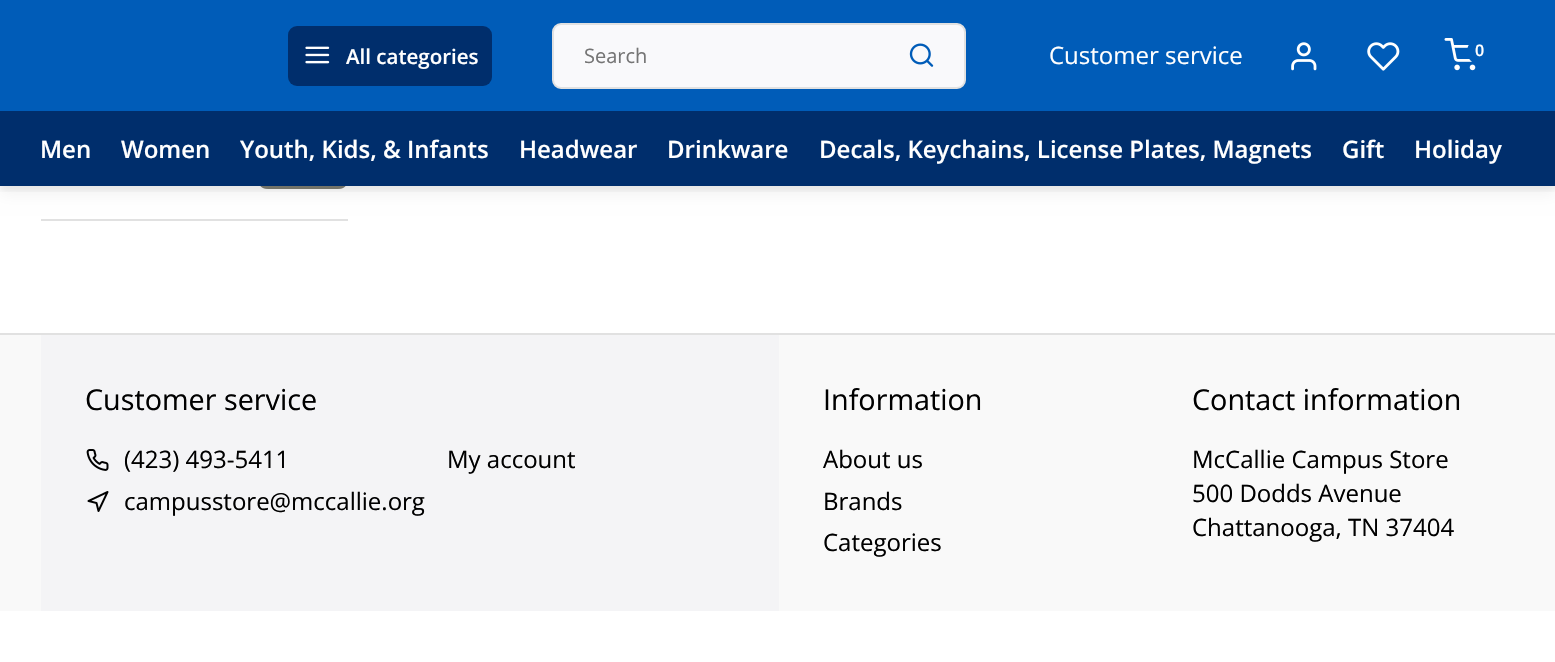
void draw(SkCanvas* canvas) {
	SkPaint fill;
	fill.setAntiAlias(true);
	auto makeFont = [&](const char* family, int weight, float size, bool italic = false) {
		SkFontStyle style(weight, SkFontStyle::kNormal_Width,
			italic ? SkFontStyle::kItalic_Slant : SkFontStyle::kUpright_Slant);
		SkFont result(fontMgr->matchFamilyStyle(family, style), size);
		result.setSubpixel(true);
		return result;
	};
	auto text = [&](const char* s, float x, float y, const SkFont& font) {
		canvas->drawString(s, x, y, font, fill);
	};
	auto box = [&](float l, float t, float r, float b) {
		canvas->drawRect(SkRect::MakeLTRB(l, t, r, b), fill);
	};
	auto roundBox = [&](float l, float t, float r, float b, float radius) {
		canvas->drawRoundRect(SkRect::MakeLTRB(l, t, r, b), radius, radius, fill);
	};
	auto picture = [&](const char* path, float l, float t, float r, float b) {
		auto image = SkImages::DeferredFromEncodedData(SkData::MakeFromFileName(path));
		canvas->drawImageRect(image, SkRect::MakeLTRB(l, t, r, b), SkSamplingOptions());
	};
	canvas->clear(0xFFFFFFFF);
	fill.setColor(0xFFB1B1B1);
	roundBox(258, 123, 348, 189, 9);
	fill.setColor(0xFF7E7E73);
	canvas->drawPath(SkPathBuilder().moveTo(258, 177).cubicTo(258, 191, 267, 189, 279, 189).lineTo(327, 189).cubicTo(339, 189, 348, 191, 348, 177).cubicTo(348, 182, 344, 186, 339, 186).lineTo(267, 186).cubicTo(262, 186, 258, 182, 258, 177).close().detach(), fill);
	fill.setColor(0x0D000000);
	fill.setMaskFilter(SkMaskFilter::MakeBlur(kNormal_SkBlurStyle, 7.5f));
	canvas->drawRect(SkRect::MakeLTRB(0, 8, 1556, 194), fill);
	fill.setMaskFilter(nullptr);
	fill.setColor(0xFF005CB8);
	box(0, 0, 1555, 111);
	canvas->save();
	canvas->clipRect(SkRect::MakeLTRB(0, 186, 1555, 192));
	fill.setColor(0x0D000000);
	fill.setMaskFilter(SkMaskFilter::MakeBlur(kNormal_SkBlurStyle, 3));
	canvas->drawRect(SkRect::MakeLTRB(0, 5, 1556, 191), fill);
	fill.setMaskFilter(nullptr);
	canvas->restore();
	fill.setColor(0xFF002E6C);
	roundBox(288, 26, 492, 86, 9);
	picture("image0.png", 305, 46, 330, 64);
	fill.setColor(0xFFF9F9FB);
	canvas->drawRoundRect(SkRect::MakeLTRB(553, 24, 965, 88), 8, 8, fill);
	fill.setStyle(SkPaint::kStroke_Style);
	fill.setStrokeWidth(2);
	fill.setColor(0xFFE1E1E1);
	canvas->drawRoundRect(SkRect::MakeLTRB(553, 24, 965, 88), 8, 8, fill);
	picture("image1.png", 909, 43, 934, 67);
	picture("image2.png", 1291, 42, 1317, 71);
	picture("image3.png", 1367, 42, 1400, 71);
	picture("image4.png", 1444, 38, 1476, 71);
	fill.setStyle(SkPaint::kFill_Style);
	fill.setColor(0xFF005CB8);
	canvas->drawCircle(1480.5f, 51.5f, 13.5f, fill);
	fill.setColor(0xFF002E6C);
	box(0, 111, 1555, 186);
	fill.setColor(0xFFE1E1E1);
	box(41, 219, 348, 221);
	box(0, 333, 1555, 335);
	fill.setColor(0xFFF9F9F9);
	box(0, 335, 1555, 611);
	fill.setColor(0xFFF4F4F6);
	box(41, 335, 779, 611);
	picture("image5.png", 86, 449, 109, 471);
	picture("image6.png", 87, 491, 109, 512);
	auto font1 = makeFont("Open Sans", 600, 20.5f);
	fill.setColor(0xFFFFFFFF);
	text("All categories", 346, 64, font1);
	auto font2 = makeFont("Open Sans", 400, 20);
	fill.setColor(0xFF757575);
	text("Search", 584, 63, font2);
	auto font3 = makeFont("Open Sans", 400, 24);
	fill.setColor(0xFFFFFFFF);
	text("Customer service", 1049, 64, font3);
	auto font4 = makeFont("Open Sans", 600, 16);
	text("0", 1475, 56, font4);
	auto font5 = makeFont("Open Sans", 600, 24);
	text("Men", 40, 158, font5);
	text("Women", 121, 158, font5);
	text("Youth, Kids, & Infants", 240, 158, font5);
	text("Headwear", 519, 158, font5);
	text("Drinkware", 667, 158, font5);
	text("Decals, Keychains, License Plates, Magnets", 819, 158, font5);
	text("Gift", 1342, 158, font5);
	text("Holiday", 1414, 158, font5);
	auto font6 = makeFont("Open Sans", 400, 28.75f);
	fill.setColor(0xFF000000);
	text("Customer service", 85, 410, font6);
	text("(423) 493-5411", 124, 468, font3);
	text("campusstore@mccallie.org", 124, 510, font3);
	text("My account", 447, 468, font3);
	text("Information", 823, 410, font6);
	text("About us", 823, 468, font3);
	text("Brands", 823, 510, font3);
	text("Categories", 823, 551, font3);
	text("Contact information", 1192, 410, font6);
	text("McCallie Campus Store", 1192, 468, font3);
	text("500 Dodds Avenue", 1192, 502, font3);
	text("Chattanooga, TN 37404", 1192, 536, font3);
}
